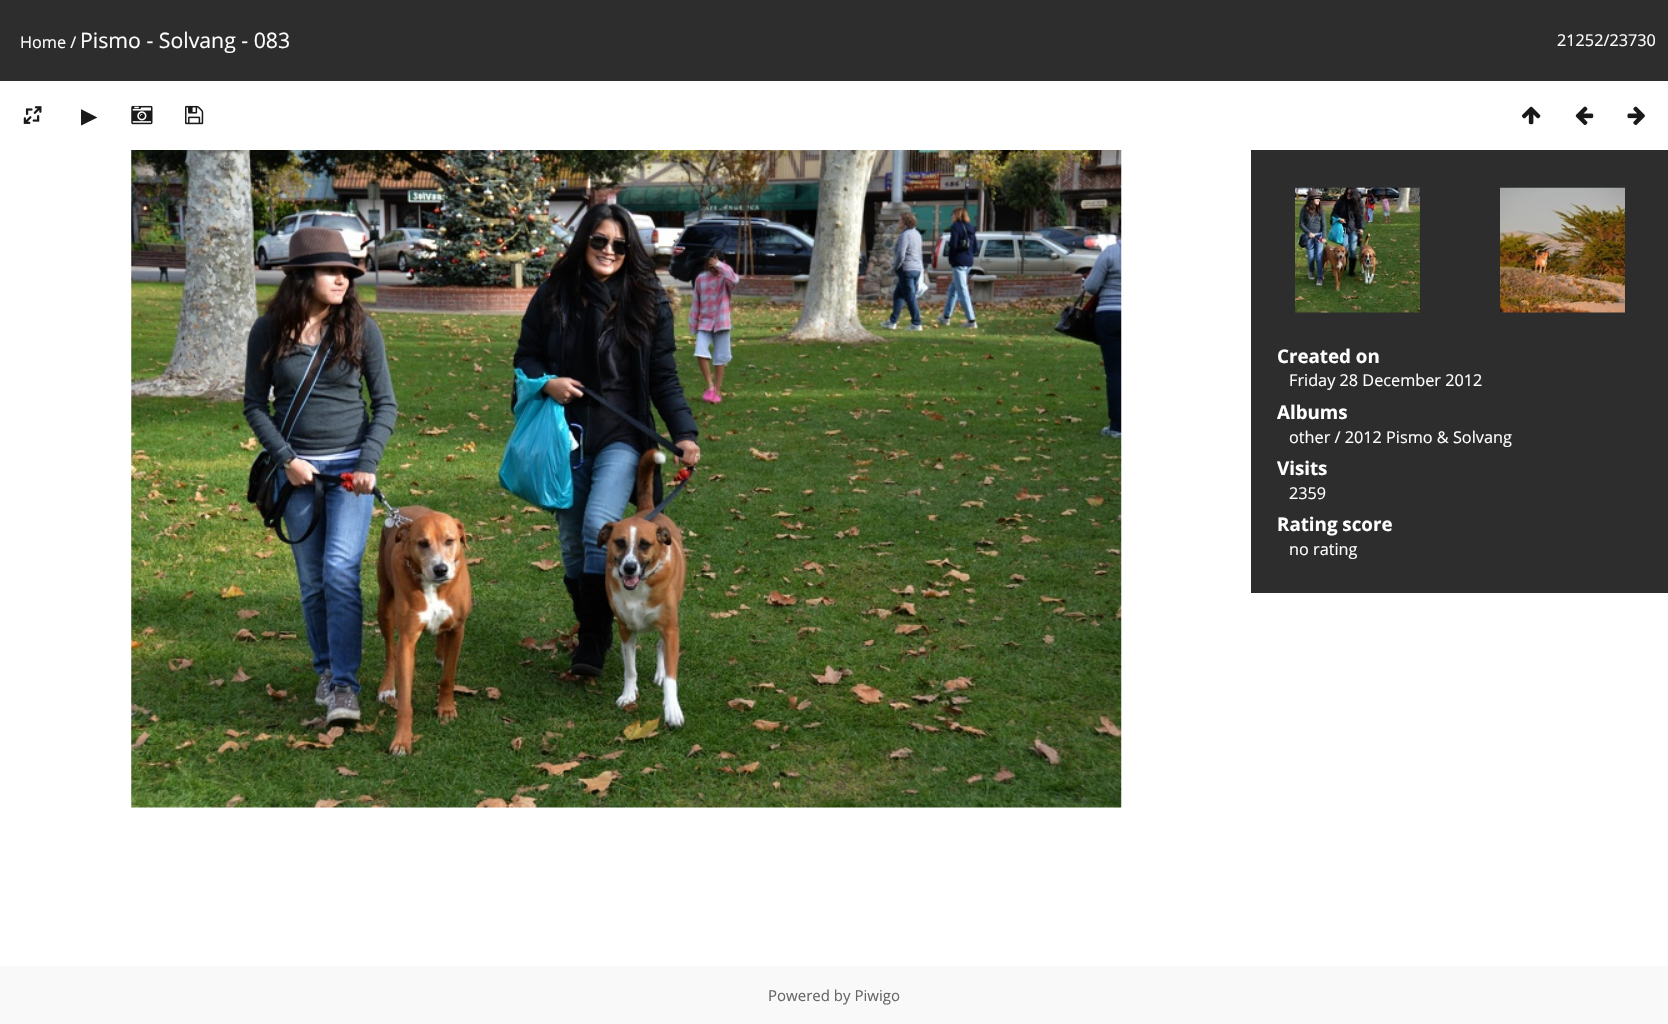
void draw(SkCanvas* canvas) {
	SkPaint fill;
	fill.setAntiAlias(true);
	auto makeFont = [&](const char* family, int weight, float size, bool italic = false) {
		SkFontStyle style(weight, SkFontStyle::kNormal_Width,
			italic ? SkFontStyle::kItalic_Slant : SkFontStyle::kUpright_Slant);
		SkFont result(fontMgr->matchFamilyStyle(family, style), size);
		result.setSubpixel(true);
		return result;
	};
	auto text = [&](const char* s, float x, float y, const SkFont& font) {
		canvas->drawString(s, x, y, font, fill);
	};
	auto box = [&](float l, float t, float r, float b) {
		canvas->drawRect(SkRect::MakeLTRB(l, t, r, b), fill);
	};
	auto picture = [&](const char* path, float l, float t, float r, float b) {
		auto image = SkImages::DeferredFromEncodedData(SkData::MakeFromFileName(path));
		canvas->drawImageRect(image, SkRect::MakeLTRB(l, t, r, b), SkSamplingOptions());
	};
	canvas->clear(0xFFFFFFFF);
	fill.setColor(0xFF2D2D2D);
	box(0, 0, 1668, 81);
	picture("image0.png", 23, 106, 42, 124);
	picture("image1.png", 131, 105, 153, 125);
	picture("image2.png", 185, 105, 204, 125);
	picture("image3.png", 1521, 106, 1541, 125);
	picture("image4.png", 1575, 106, 1594, 125);
	picture("image5.png", 1627, 106, 1645, 125);
	picture("image6.png", 131, 150, 1122, 808);
	box(1251, 150, 1668, 593);
	picture("image7.png", 1295, 187, 1420, 313);
	picture("image8.png", 1500, 187, 1625, 313);
	fill.setColor(0xFFF9F9F9);
	box(0, 966, 1668, 1024);
	auto font1 = makeFont("Open Sans", 400, 16.25f);
	fill.setColor(0xFFFFFFFF);
	text("Home /", 20, 48, font1);
	auto font2 = makeFont("Open Sans", 400, 21.25f);
	text("Pismo - Solvang - 083", 80, 48, font2);
	text("21252/23730", 1557, 46, font1);
	auto font3 = makeFont("DejaVu Sans", 400, 21.25f);
	fill.setColor(0xFF1A1A1A);
	text("▶", 81, 123, font3);
	auto font4 = makeFont("Open Sans", 700, 18.75f);
	fill.setColor(0xFFFFFFFF);
	text("Created on", 1277, 363, font4);
	text("Friday 28 December 2012", 1289, 386, font1);
	text("Albums", 1277, 419, font4);
	text("other / 2012 Pismo & Solvang", 1289, 443, font1);
	text("Visits", 1277, 475, font4);
	text("2359", 1289, 499, font1);
	text("Rating score", 1277, 531, font4);
	text("no rating", 1289, 555, font1);
	auto font5 = makeFont("Open Sans", 400, 15);
	fill.setColor(0xFF666666);
	text("Powered by Piwigo", 768, 1001, font5);
}
